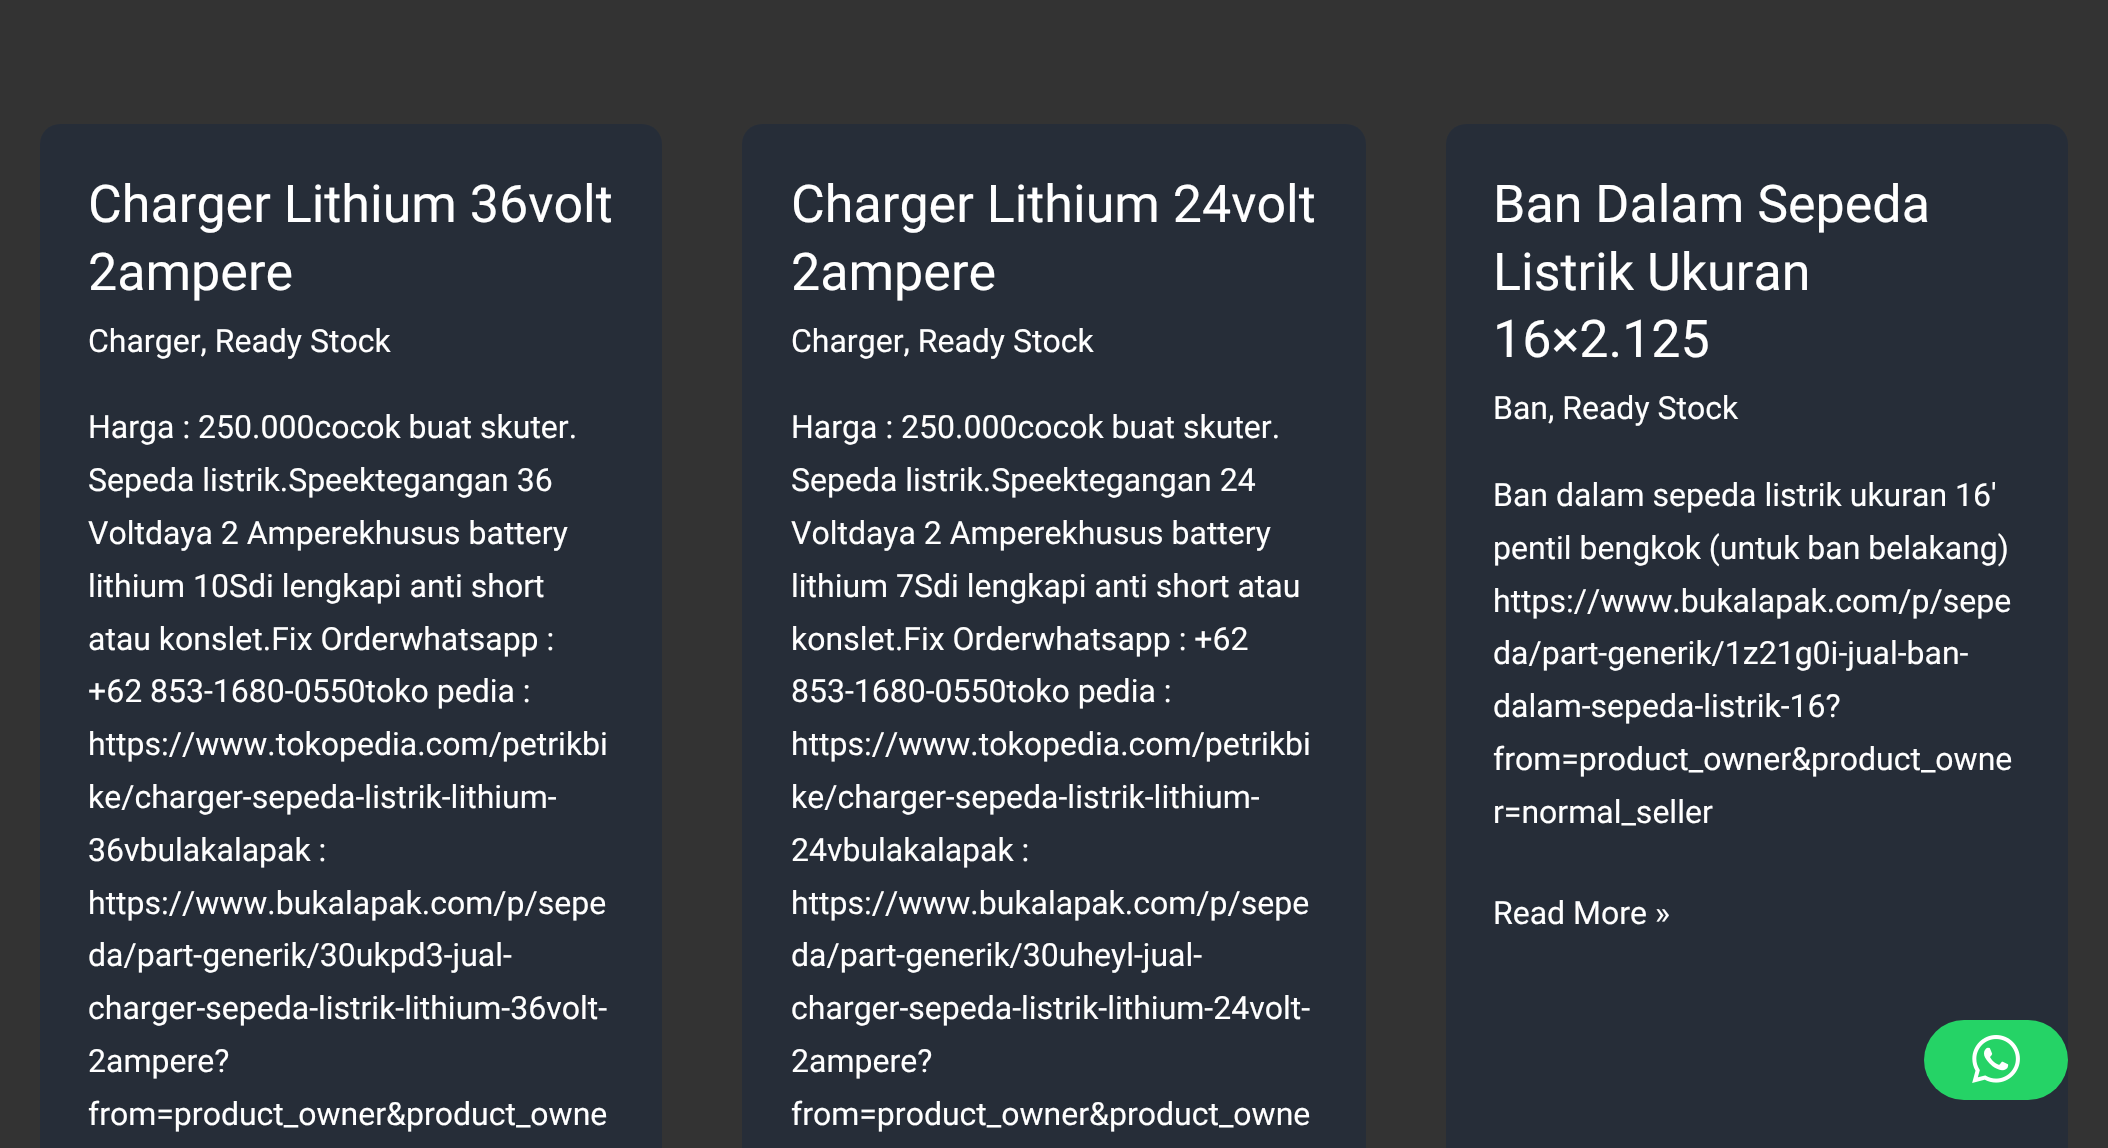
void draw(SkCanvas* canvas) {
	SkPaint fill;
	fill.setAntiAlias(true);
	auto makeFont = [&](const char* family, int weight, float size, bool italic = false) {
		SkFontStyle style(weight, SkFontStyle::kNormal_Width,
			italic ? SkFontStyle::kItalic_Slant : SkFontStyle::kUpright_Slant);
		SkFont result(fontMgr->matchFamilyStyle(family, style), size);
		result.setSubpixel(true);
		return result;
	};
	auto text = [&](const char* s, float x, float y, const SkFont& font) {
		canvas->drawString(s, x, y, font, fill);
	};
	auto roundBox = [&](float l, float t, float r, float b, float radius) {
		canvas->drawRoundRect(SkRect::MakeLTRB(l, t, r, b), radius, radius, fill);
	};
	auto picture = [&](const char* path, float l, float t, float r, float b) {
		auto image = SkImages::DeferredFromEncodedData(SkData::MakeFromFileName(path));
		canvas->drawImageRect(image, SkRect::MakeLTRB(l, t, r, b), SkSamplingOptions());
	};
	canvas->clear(0xFF333333);
	fill.setColor(0xFF262D38);
	roundBox(40, 124, 662, 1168, 20);
	roundBox(742, 124, 1366, 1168, 20);
	roundBox(1446, 124, 2068, 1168, 20);
	fill.setColor(0xFF25D366);
	roundBox(1924, 1020, 2068, 1100, 40);
	picture("image0.png", 1972, 1035, 2020, 1083);
	auto font1 = makeFont("Roboto", 400, 52);
	fill.setColor(0xFFFFFFFF);
	text("Charger Lithium 36volt", 88, 222, font1);
	text("2ampere", 88, 290, font1);
	auto font2 = makeFont("Roboto", 400, 32);
	text("Charger, Ready Stock", 88, 352, font2);
	text("Harga : 250.000cocok buat skuter.", 88, 438, font2);
	text("Sepeda listrik.Speektegangan 36", 88, 491, font2);
	text("Voltdaya 2 Amperekhusus battery", 88, 544, font2);
	text("lithium 10Sdi lengkapi anti short", 88, 597, font2);
	text("atau konslet.Fix Orderwhatsapp :", 88, 650, font2);
	text("+62 853-1680-0550toko pedia :", 88, 702, font2);
	text("https://www.tokopedia.com/petrikbi", 88, 755, font2);
	text("ke/charger-sepeda-listrik-lithium-", 88, 808, font2);
	text("36vbulakalapak :", 88, 861, font2);
	text("https://www.bukalapak.com/p/sepe", 88, 914, font2);
	text("da/part-generik/30ukpd3-jual-", 88, 966, font2);
	text("charger-sepeda-listrik-lithium-36volt-", 88, 1019, font2);
	text("2ampere?", 88, 1072, font2);
	text("from=product_owner&product_owne", 88, 1125, font2);
	text("Charger Lithium 24volt", 791, 222, font1);
	text("2ampere", 791, 290, font1);
	text("Charger, Ready Stock", 791, 352, font2);
	text("Harga : 250.000cocok buat skuter.", 791, 438, font2);
	text("Sepeda listrik.Speektegangan 24", 791, 491, font2);
	text("Voltdaya 2 Amperekhusus battery", 791, 544, font2);
	text("lithium 7Sdi lengkapi anti short atau", 791, 597, font2);
	text("konslet.Fix Orderwhatsapp : +62", 791, 650, font2);
	text("853-1680-0550toko pedia :", 791, 702, font2);
	text("https://www.tokopedia.com/petrikbi", 791, 755, font2);
	text("ke/charger-sepeda-listrik-lithium-", 791, 808, font2);
	text("24vbulakalapak :", 791, 861, font2);
	text("https://www.bukalapak.com/p/sepe", 791, 914, font2);
	text("da/part-generik/30uheyl-jual-", 791, 966, font2);
	text("charger-sepeda-listrik-lithium-24volt-", 791, 1019, font2);
	text("2ampere?", 791, 1072, font2);
	text("from=product_owner&product_owne", 791, 1125, font2);
	text("Ban Dalam Sepeda", 1493, 222, font1);
	text("Listrik Ukuran", 1493, 290, font1);
	text("16×2.125", 1493, 357, font1);
	text("Ban, Ready Stock", 1493, 419, font2);
	text("Ban dalam sepeda listrik ukuran 16′", 1493, 506, font2);
	text("pentil bengkok (untuk ban belakang)", 1493, 559, font2);
	text("https://www.bukalapak.com/p/sepe", 1493, 612, font2);
	text("da/part-generik/1z21g0i-jual-ban-", 1493, 664, font2);
	text("dalam-sepeda-listrik-16?", 1493, 717, font2);
	text("from=product_owner&product_owne", 1493, 770, font2);
	text("r=normal_seller", 1493, 823, font2);
	text("Read More »", 1493, 924, font2);
}
